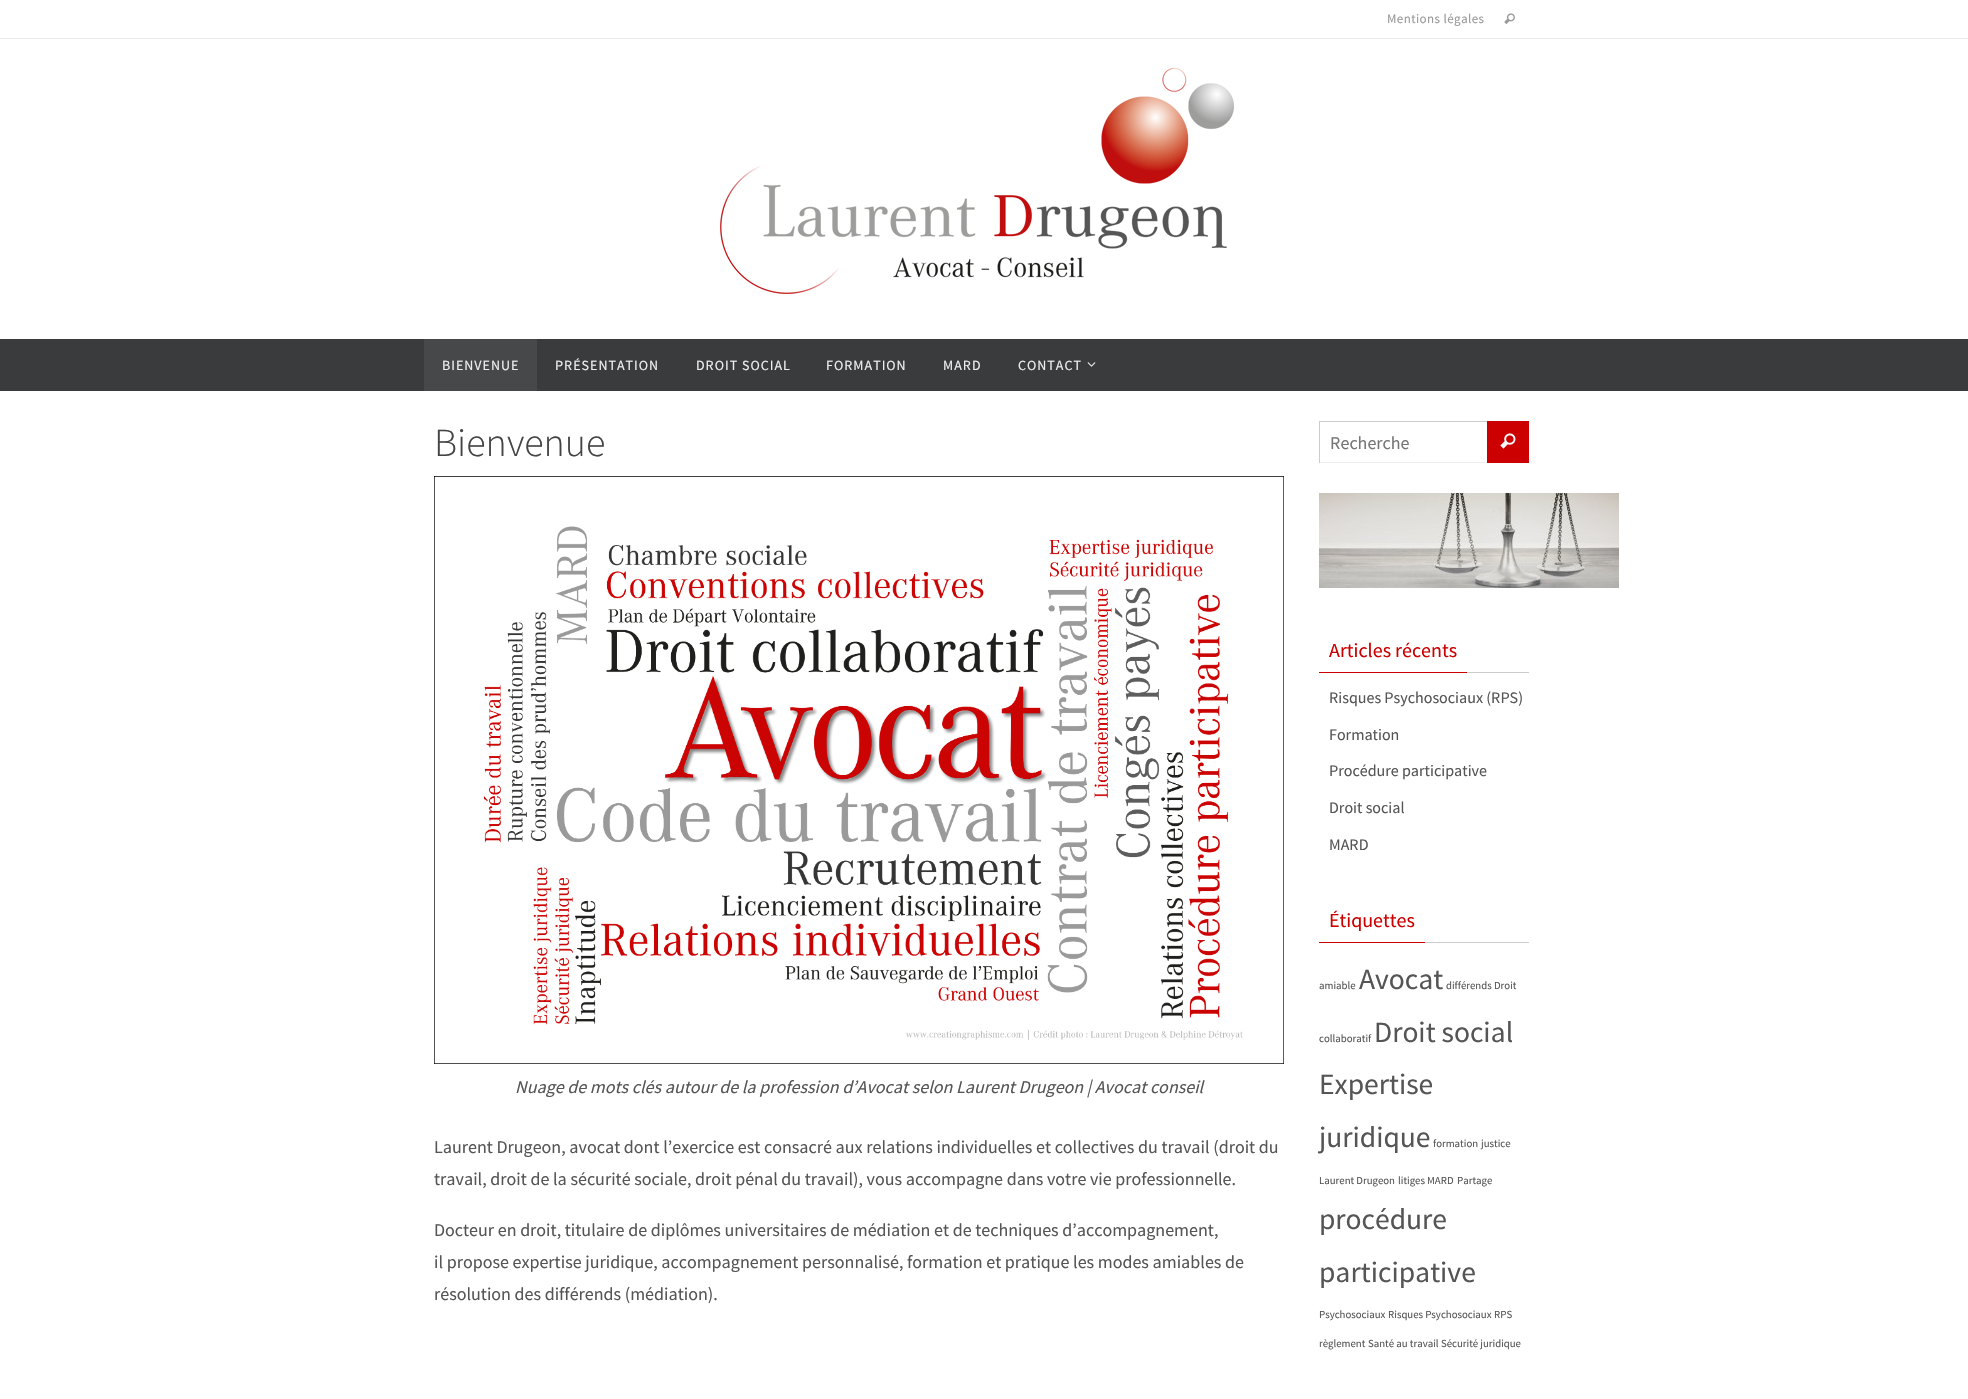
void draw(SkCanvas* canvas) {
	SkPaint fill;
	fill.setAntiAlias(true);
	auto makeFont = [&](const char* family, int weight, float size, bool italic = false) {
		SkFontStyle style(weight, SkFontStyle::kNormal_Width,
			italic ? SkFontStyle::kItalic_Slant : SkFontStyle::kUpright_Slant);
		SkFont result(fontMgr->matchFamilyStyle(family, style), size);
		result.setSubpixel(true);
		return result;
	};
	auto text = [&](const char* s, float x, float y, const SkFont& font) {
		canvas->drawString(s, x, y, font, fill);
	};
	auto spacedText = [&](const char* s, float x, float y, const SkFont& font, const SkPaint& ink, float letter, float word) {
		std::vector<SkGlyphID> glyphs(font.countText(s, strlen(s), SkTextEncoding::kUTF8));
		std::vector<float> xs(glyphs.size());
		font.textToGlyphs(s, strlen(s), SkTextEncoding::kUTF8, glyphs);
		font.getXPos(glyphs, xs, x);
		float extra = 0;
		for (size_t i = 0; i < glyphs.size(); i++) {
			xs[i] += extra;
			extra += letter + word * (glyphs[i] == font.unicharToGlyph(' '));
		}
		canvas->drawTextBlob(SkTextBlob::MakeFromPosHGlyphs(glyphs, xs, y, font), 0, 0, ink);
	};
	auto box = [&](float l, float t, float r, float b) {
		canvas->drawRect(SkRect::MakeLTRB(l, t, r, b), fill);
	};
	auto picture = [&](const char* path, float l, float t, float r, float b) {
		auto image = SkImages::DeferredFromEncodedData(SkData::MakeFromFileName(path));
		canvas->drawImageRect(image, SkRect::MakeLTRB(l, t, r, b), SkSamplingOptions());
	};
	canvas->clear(0xFFFFFFFF);
	fill.setColor(0xFFEBEBEB);
	box(0, 38, 1968, 39);
	picture("image0.png", 1504, 13, 1515, 24);
	picture("image1.png", 720, 68, 1234, 294);
	fill.setColor(0xFF3A3B3D);
	box(0, 339, 1968, 391);
	fill.setColor(0xFF47484A);
	box(424, 339, 537, 391);
	picture("image2.png", 1087, 362, 1096, 367);
	picture("image3.png", 434, 476, 1284, 1064);
	fill.setColor(0xFFCC0000);
	box(1487, 421, 1529, 463);
	fill.setColor(0xFFCCCCCC);
	box(1319, 421, 1487, 422);
	fill.setColor(0xFFEEEEEE);
	box(1319, 462, 1487, 463);
	fill.setColor(0xFFCCCCCC);
	box(1319, 421, 1320, 463);
	picture("image4.png", 1500, 433, 1516, 449);
	picture("image5.png", 1319, 493, 1619, 588);
	box(1467, 672, 1529, 673);
	fill.setColor(0xFFCC0000);
	box(1319, 672, 1467, 673);
	fill.setColor(0xFFCCCCCC);
	box(1425, 942, 1529, 943);
	fill.setColor(0xFFCC0000);
	box(1319, 942, 1425, 943);
	auto font1 = makeFont("Source Sans Pro", 400, 13);
	fill.setColor(0xFF999999);
	spacedText("Mentions légales", 1387, 23, font1, fill, 0.4f, 0);
	auto font2 = makeFont("Source Sans Pro", 400, 14);
	fill.setColor(0xFFEEEEEE);
	spacedText("BIENVENUE", 442, 370, font2, fill, 1, 0);
	spacedText("PRÉSENTATION", 555, 370, font2, fill, 1, 0);
	spacedText("DROIT SOCIAL", 696, 370, font2, fill, 1, 0);
	spacedText("FORMATION", 826, 370, font2, fill, 1, 0);
	spacedText("MARD", 943, 370, font2, fill, 1, 0);
	spacedText("CONTACT", 1018, 370, font2, fill, 1, 0);
	auto font3 = makeFont("Source Sans Pro", 300, 40);
	fill.setColor(0xFF444444);
	text("Bienvenue", 434, 456, font3);
	auto font4 = makeFont("Source Sans Pro", 400, 18, true);
	fill.setColor(0xFF555555);
	text("Nuage de mots clés autour de la profession d’Avocat selon Laurent Drugeon | Avocat conseil", 515, 1093, font4);
	auto font5 = makeFont("Source Sans Pro", 400, 18);
	text("Laurent Drugeon, avocat dont l’exercice est consacré aux relations individuelles et collectives du travail (droit du", 434, 1153, font5);
	text("travail, droit de la sécurité sociale, droit pénal du travail), vous accompagne dans votre vie professionnelle.", 434, 1185, font5);
	text("Docteur en droit, titulaire de diplômes universitaires de médiation et de techniques d’accompagnement,", 434, 1236, font5);
	text("il propose expertise juridique, accompagnement personnalisé, formation et pratique les modes amiables de", 434, 1268, font5);
	text("résolution des différends (médiation).", 434, 1300, font5);
	fill.setColor(0xFF757575);
	text("Recherche", 1330, 449, font5);
	auto font6 = makeFont("Source Sans Pro", 400, 20);
	fill.setColor(0xFFCC0000);
	text("Articles récents", 1329, 657, font6);
	auto font7 = makeFont("Source Sans Pro", 400, 16);
	fill.setColor(0xFF555555);
	text("Risques Psychosociaux (RPS)", 1329, 703, font7);
	text("Formation", 1329, 740, font7);
	text("Procédure participative", 1329, 776, font7);
	text("Droit social", 1329, 813, font7);
	text("MARD", 1329, 850, font7);
	fill.setColor(0xFFCC0000);
	text("Étiquettes", 1329, 927, font6);
	auto font8 = makeFont("Source Sans Pro", 400, 10.75f);
	fill.setColor(0xFF555555);
	text("amiable", 1319, 989, font8);
	auto font9 = makeFont("Source Sans Pro", 400, 29.5f);
	text("Avocat", 1359, 989, font9);
	text("différends", 1446, 989, font8);
	text("Droit", 1494, 989, font8);
	text("collaboratif", 1319, 1042, font8);
	text("Droit social", 1374, 1042, font9);
	text("Expertise", 1319, 1094, font9);
	text("juridique", 1319, 1147, font9);
	text("formation", 1433, 1147, font8);
	text("justice", 1481, 1147, font8);
	text("Laurent Drugeon", 1319, 1184, font8);
	text("litiges", 1398, 1184, font8);
	text("MARD", 1427, 1184, font8);
	text("Partage", 1457, 1184, font8);
	text("procédure", 1319, 1229, font9);
	text("participative", 1319, 1282, font9);
	text("Psychosociaux", 1319, 1318, font8);
	text("Risques Psychosociaux", 1388, 1318, font8);
	text("RPS", 1494, 1318, font8);
	text("règlement", 1319, 1347, font8);
	text("Santé au travail", 1368, 1347, font8);
	text("Sécurité juridique", 1441, 1347, font8);
}
